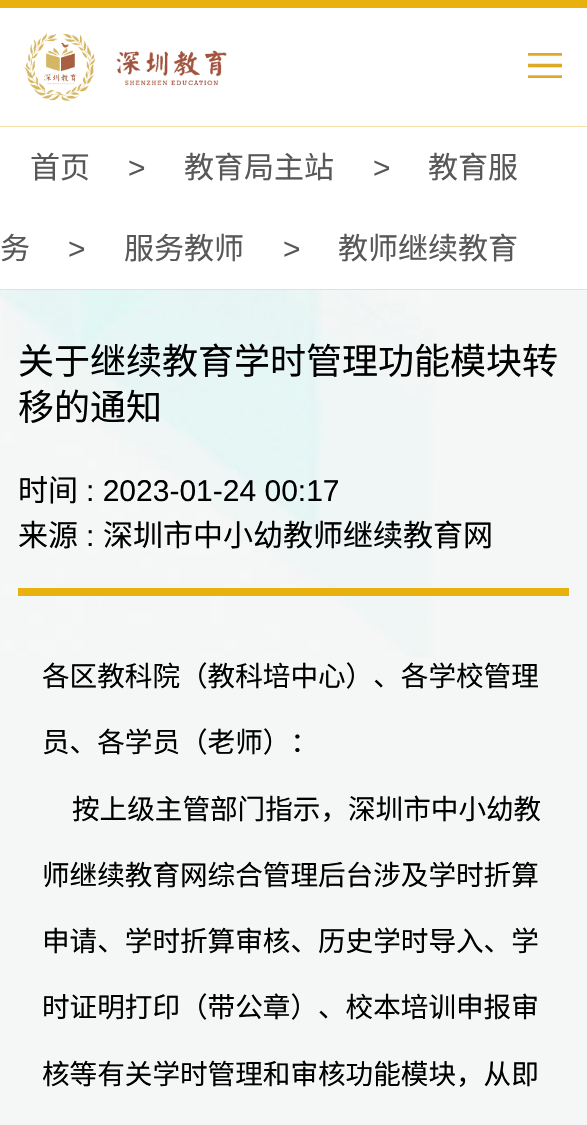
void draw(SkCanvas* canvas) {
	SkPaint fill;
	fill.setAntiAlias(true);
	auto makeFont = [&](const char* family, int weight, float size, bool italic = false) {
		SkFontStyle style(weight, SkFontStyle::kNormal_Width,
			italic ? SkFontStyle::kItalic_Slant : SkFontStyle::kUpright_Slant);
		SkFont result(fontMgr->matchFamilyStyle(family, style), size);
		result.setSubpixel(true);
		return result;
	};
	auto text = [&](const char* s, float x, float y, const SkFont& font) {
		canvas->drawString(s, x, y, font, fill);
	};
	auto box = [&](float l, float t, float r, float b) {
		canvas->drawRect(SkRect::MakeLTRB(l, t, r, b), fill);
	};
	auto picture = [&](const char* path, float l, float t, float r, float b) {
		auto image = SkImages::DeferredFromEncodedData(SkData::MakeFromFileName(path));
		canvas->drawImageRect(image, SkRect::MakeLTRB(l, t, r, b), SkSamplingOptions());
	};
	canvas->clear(0xFFFFFFFF);
	fill.setColor(0xFFE9B10E);
	box(0, 0, 587, 8);
	picture("image0.png", 24, 32, 227, 102);
	picture("image1.png", 528, 53, 562, 78);
	fill.setColor(0xFFF7E2A6);
	box(0, 126, 587, 127);
	box(0, 289, 587, 290);
	fill.setColor(0xFFF4F7F6);
	box(0, 290, 587, 1125);
	picture("image2.png", 0, 290, 436, 657);
	fill.setColor(0xFFE9B10E);
	box(18, 588, 569, 596);
	auto font1 = makeFont("Noto Sans CJK SC", 400, 30);
	fill.setColor(0xFF585858);
	text("首页", 30, 178, font1);
	auto font2 = makeFont("Liberation Sans", 400, 30);
	text(">", 128, 178, font2);
	text("教育局主站", 184, 178, font1);
	text(">", 373, 178, font2);
	text("教育服", 428, 178, font1);
	text("务", 0, 259, font1);
	text(">", 68, 259, font2);
	text("服务教师", 124, 259, font1);
	text(">", 283, 259, font2);
	text("教师继续教育", 338, 259, font1);
	auto font3 = makeFont("Noto Sans CJK SC", 400, 36);
	fill.setColor(0xFF000000);
	text("关于继续教育学时管理功能模块转", 18, 374, font3);
	text("移的通知", 18, 420, font3);
	text("时间", 18, 501, font1);
	text(": 2023-01-24 00:17", 86, 501, font2);
	text("来源", 18, 546, font1);
	text(":", 86, 546, font2);
	text("深圳市中小幼教师继续教育网", 103, 546, font1);
	auto font4 = makeFont("Noto Sans CJK SC", 400, 27.6f);
	text("各区教科院（教科培中心）、各学校管理", 42, 686, font4);
	text("员、各学员（老师）：", 42, 752, font4);
	text("按上级主管部门指示，深圳市中小幼教", 72, 819, font4);
	text("师继续教育网综合管理后台涉及学时折算", 42, 885, font4);
	text("申请、学时折算审核、历史学时导入、学", 42, 951, font4);
	text("时证明打印（带公章）、校本培训申报审", 42, 1017, font4);
	text("核等有关学时管理和审核功能模块，从即", 42, 1084, font4);
}
